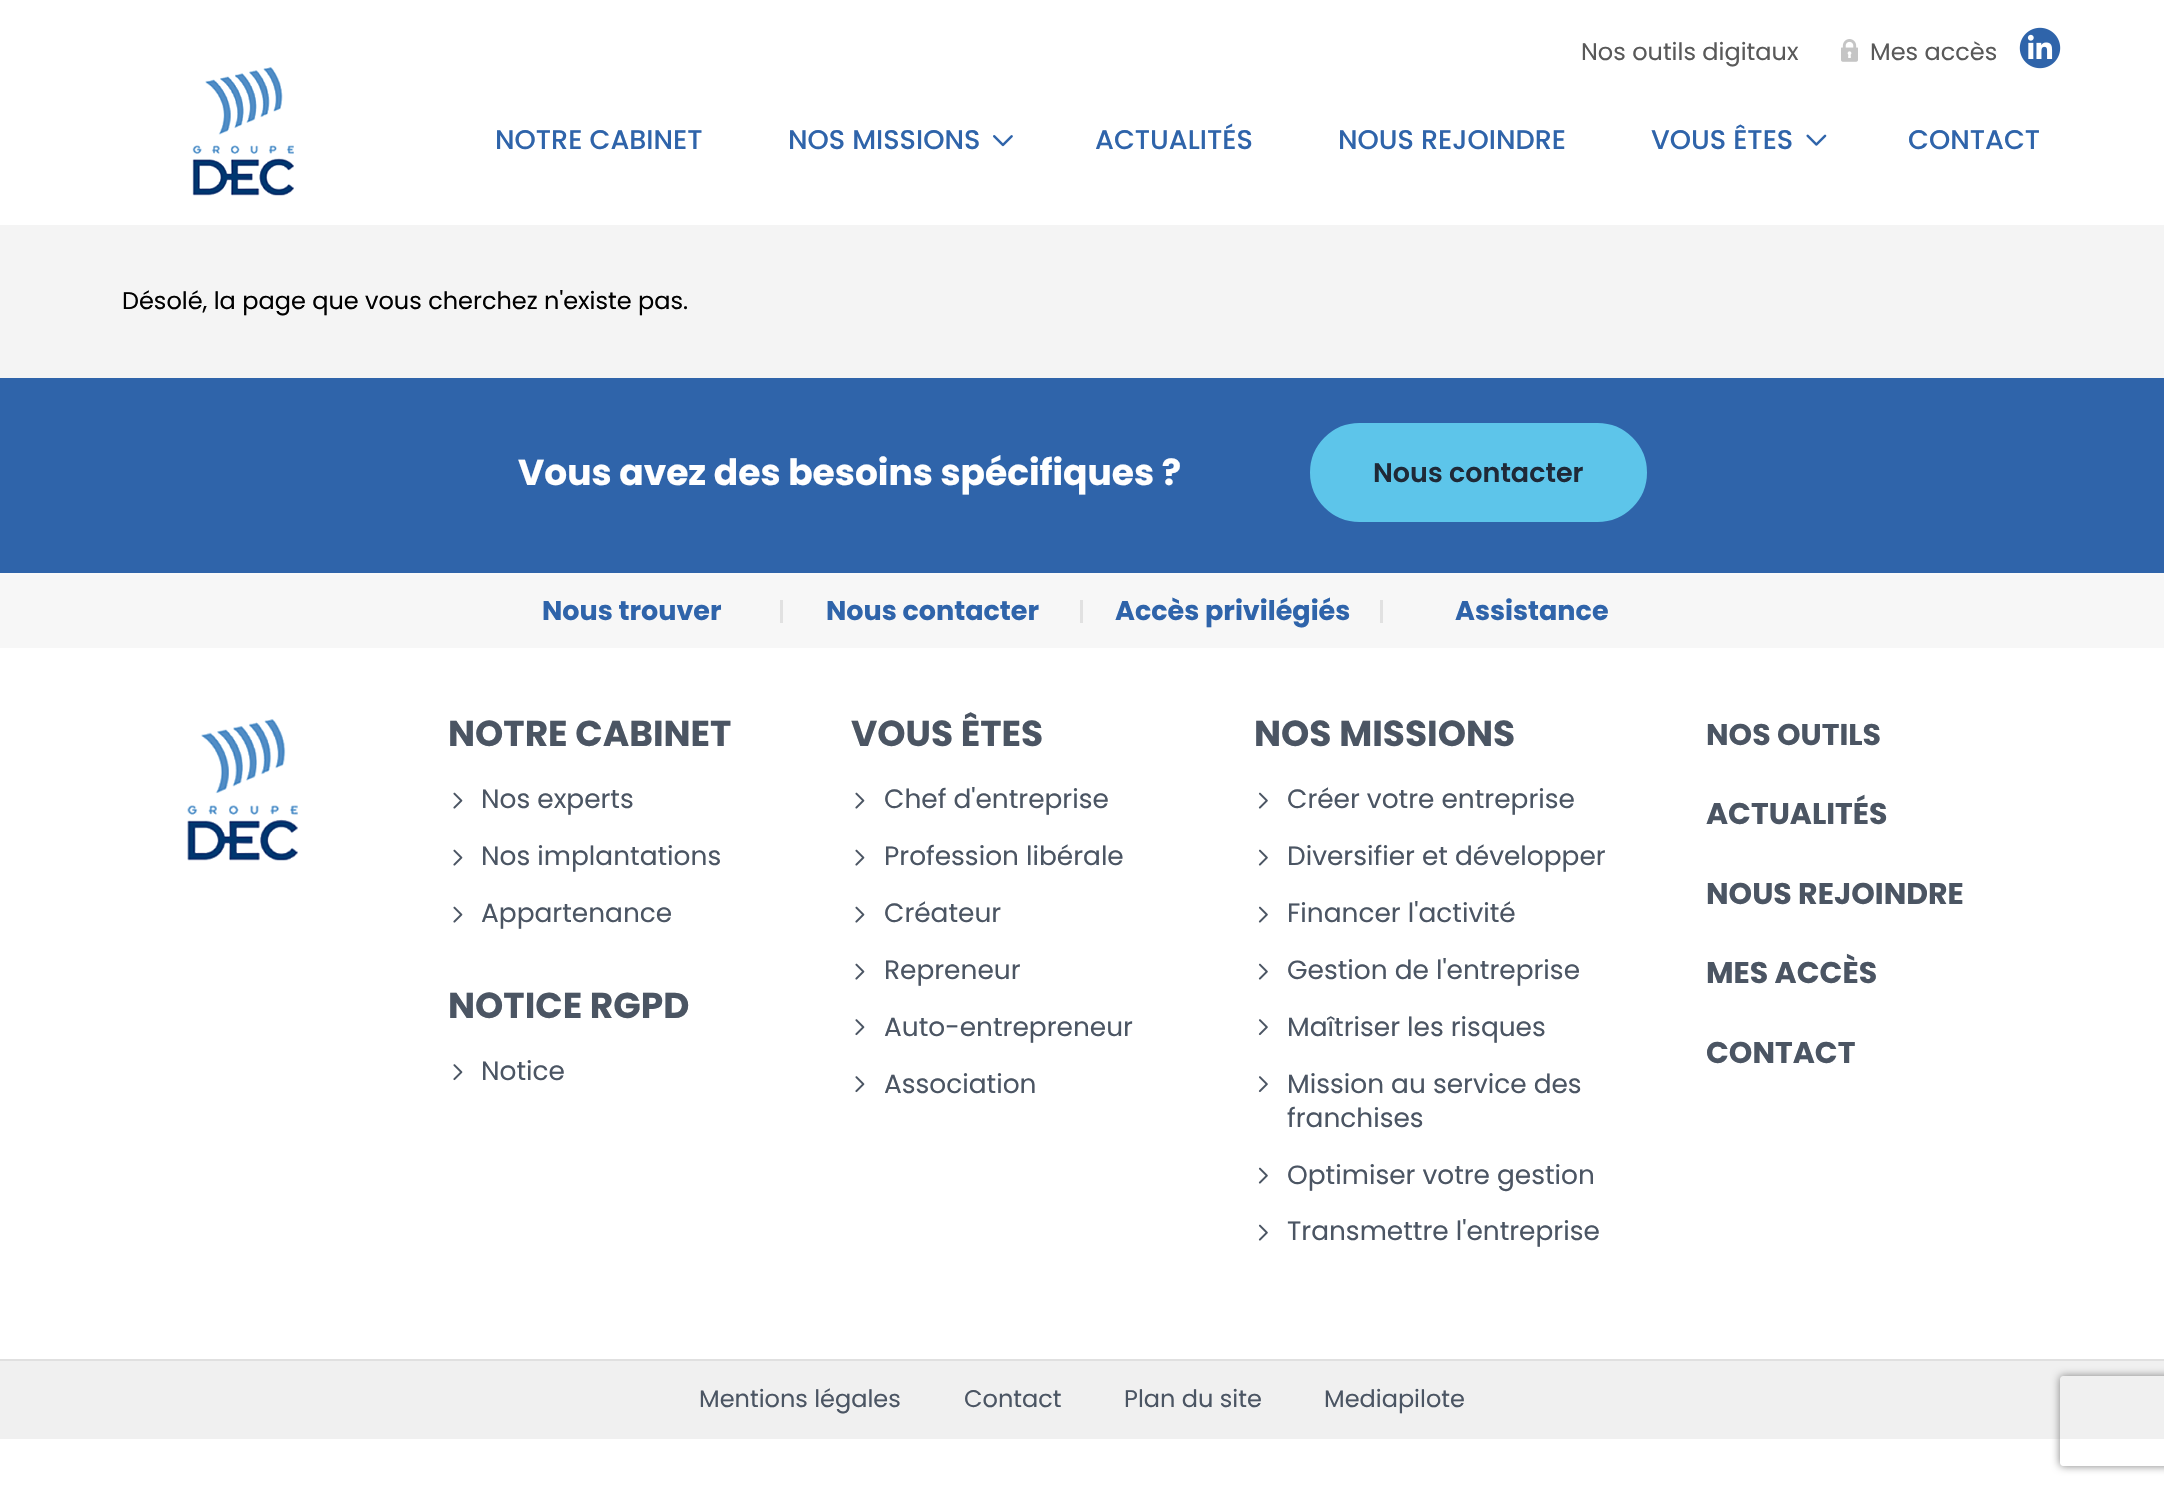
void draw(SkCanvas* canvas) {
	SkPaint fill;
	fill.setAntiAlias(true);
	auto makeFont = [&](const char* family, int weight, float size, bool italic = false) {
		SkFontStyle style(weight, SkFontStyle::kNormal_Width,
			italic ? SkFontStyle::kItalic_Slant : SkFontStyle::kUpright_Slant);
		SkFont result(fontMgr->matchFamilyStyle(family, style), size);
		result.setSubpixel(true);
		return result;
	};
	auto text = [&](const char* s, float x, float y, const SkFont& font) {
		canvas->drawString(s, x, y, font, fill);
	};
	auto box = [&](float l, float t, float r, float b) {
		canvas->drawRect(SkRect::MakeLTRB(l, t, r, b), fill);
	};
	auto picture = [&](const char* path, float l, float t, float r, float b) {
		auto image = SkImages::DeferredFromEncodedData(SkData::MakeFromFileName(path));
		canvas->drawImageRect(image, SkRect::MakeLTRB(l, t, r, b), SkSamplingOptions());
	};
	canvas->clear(0xFFFFFFFF);
	picture("image0.png", 1841, 39, 1858, 62);
	picture("image1.png", 2019, 27, 2061, 69);
	picture("image2.png", 192, 67, 294, 196);
	picture("image3.png", 993, 135, 1013, 147);
	picture("image4.png", 1806, 134, 1827, 146);
	fill.setColor(0xFFF4F4F4);
	box(0, 225, 2164, 378);
	fill.setColor(0xFF2F64AA);
	box(0, 378, 2164, 573);
	fill.setColor(0xFF5DC5EA);
	canvas->drawRoundRect(SkRect::MakeLTRB(1311.5f, 424.5f, 1645.5f, 520.5f), 48, 48, fill);
	fill.setStyle(SkPaint::kStroke_Style);
	fill.setStrokeWidth(3);
	canvas->drawRoundRect(SkRect::MakeLTRB(1311.5f, 424.5f, 1645.5f, 520.5f), 48, 48, fill);
	fill.setStyle(SkPaint::kFill_Style);
	fill.setColor(0xFFF7F7F7);
	box(0, 575, 2164, 648);
	fill.setColor(0xFFF9F9F9);
	box(0, 573, 2164, 575);
	fill.setColor(0xFFE1E1E1);
	box(780, 600, 783, 623);
	box(1080, 600, 1083, 623);
	box(1380, 600, 1383, 623);
	picture("image5.png", 187, 719, 298, 861);
	picture("image6.png", 453, 792, 463, 809);
	picture("image6.png", 453, 849, 463, 866);
	picture("image6.png", 453, 906, 463, 923);
	picture("image7.png", 453, 1064, 463, 1081);
	picture("image6.png", 855, 792, 865, 809);
	picture("image6.png", 855, 849, 865, 866);
	picture("image6.png", 855, 906, 865, 923);
	picture("image6.png", 855, 963, 865, 980);
	picture("image7.png", 855, 1019, 865, 1036);
	picture("image7.png", 855, 1076, 865, 1093);
	picture("image8.png", 1258, 792, 1268, 809);
	picture("image8.png", 1258, 849, 1268, 866);
	picture("image8.png", 1258, 906, 1268, 923);
	picture("image8.png", 1258, 963, 1268, 980);
	picture("image9.png", 1258, 1019, 1268, 1036);
	picture("image9.png", 1258, 1076, 1268, 1093);
	picture("image8.png", 1258, 1167, 1268, 1184);
	picture("image8.png", 1258, 1224, 1268, 1241);
	fill.setColor(0xFFF0F0F0);
	box(0, 1361, 2164, 1439);
	fill.setColor(0xFFE0E0E0);
	box(0, 1359, 2164, 1361);
	canvas->save();
	canvas->clipPath(SkPathBuilder(SkPathFillType::kEvenOdd).moveTo(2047, 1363).lineTo(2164, 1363).lineTo(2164, 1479).lineTo(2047, 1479).close().moveTo(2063, 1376).lineTo(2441, 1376).cubicTo(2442.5f, 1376, 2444, 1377.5f, 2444, 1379).lineTo(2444, 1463).cubicTo(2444, 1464.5f, 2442.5f, 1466, 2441, 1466).lineTo(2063, 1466).cubicTo(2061.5f, 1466, 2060, 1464.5f, 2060, 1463).lineTo(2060, 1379).cubicTo(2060, 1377.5f, 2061.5f, 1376, 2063, 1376).close().detach(), true);
	fill.setColor(0xFF808080);
	fill.setMaskFilter(SkMaskFilter::MakeBlur(kNormal_SkBlurStyle, 4));
	canvas->drawRoundRect(SkRect::MakeLTRB(2060, 1376, 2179, 1466), 3, 3, fill);
	fill.setMaskFilter(nullptr);
	canvas->restore();
	auto font1 = makeFont("Poppins", 400, 24);
	fill.setColor(0xFF595959);
	text("Nos outils digitaux", 1581, 60, font1);
	text("Mes accès", 1870, 60, font1);
	auto font2 = makeFont("Poppins", 500, 27.1f);
	fill.setColor(0xFF2F64AA);
	text("NOTRE CABINET", 495, 149, font2);
	text("NOS MISSIONS", 788, 149, font2);
	text("ACTUALITÉS", 1095, 149, font2);
	text("NOUS REJOINDRE", 1338, 149, font2);
	text("VOUS ÊTES", 1651, 149, font2);
	text("CONTACT", 1908, 149, font2);
	fill.setColor(0xFF000000);
	text("Désolé, la page que vous cherchez n'existe pas.", 122, 309, font1);
	auto font3 = makeFont("Poppins", 700, 36);
	fill.setColor(0xFFFFFFFF);
	text("Vous avez des besoins spécifiques ?", 518, 485, font3);
	auto font4 = makeFont("Poppins", 600, 27);
	fill.setColor(0xFF1F2937);
	text("Nous contacter", 1373, 482, font4);
	auto font5 = makeFont("Poppins", 700, 27);
	fill.setColor(0xFF2F64AA);
	text("Nous trouver", 542, 620, font5);
	text("Nous contacter", 826, 620, font5);
	text("Accès privilégiés", 1115, 620, font5);
	text("Assistance", 1455, 620, font5);
	fill.setColor(0xFF4B5563);
	text("NOTRE CABINET", 448, 746, font3);
	auto font6 = makeFont("Poppins", 400, 26.4f);
	text("Nos experts", 481, 808, font6);
	text("Nos implantations", 481, 865, font6);
	text("Appartenance", 481, 922, font6);
	text("NOTICE RGPD", 448, 1018, font3);
	text("Notice", 481, 1080, font6);
	text("VOUS ÊTES", 851, 746, font3);
	text("Chef d'entreprise", 884, 808, font6);
	text("Profession libérale", 884, 865, font6);
	text("Créateur", 884, 922, font6);
	text("Repreneur", 884, 979, font6);
	text("Auto-entrepreneur", 884, 1036, font6);
	text("Association", 884, 1093, font6);
	text("NOS MISSIONS", 1254, 746, font3);
	text("Créer votre entreprise", 1287, 808, font6);
	text("Diversifier et développer", 1287, 865, font6);
	text("Financer l'activité", 1287, 922, font6);
	text("Gestion de l'entreprise", 1287, 979, font6);
	text("Maîtriser les risques", 1287, 1036, font6);
	text("Mission au service des", 1287, 1093, font6);
	text("franchises", 1287, 1127, font6);
	text("Optimiser votre gestion", 1287, 1184, font6);
	text("Transmettre l'entreprise", 1287, 1240, font6);
	auto font7 = makeFont("Poppins", 700, 30);
	text("NOS OUTILS", 1706, 745, font7);
	text("ACTUALITÉS", 1706, 824, font7);
	text("NOUS REJOINDRE", 1706, 904, font7);
	text("MES ACCÈS", 1706, 983, font7);
	text("CONTACT", 1706, 1063, font7);
	text("Mentions légales", 699, 1407, font1);
	text("Contact", 964, 1407, font1);
	text("Plan du site", 1124, 1407, font1);
	text("Mediapilote", 1324, 1407, font1);
}
